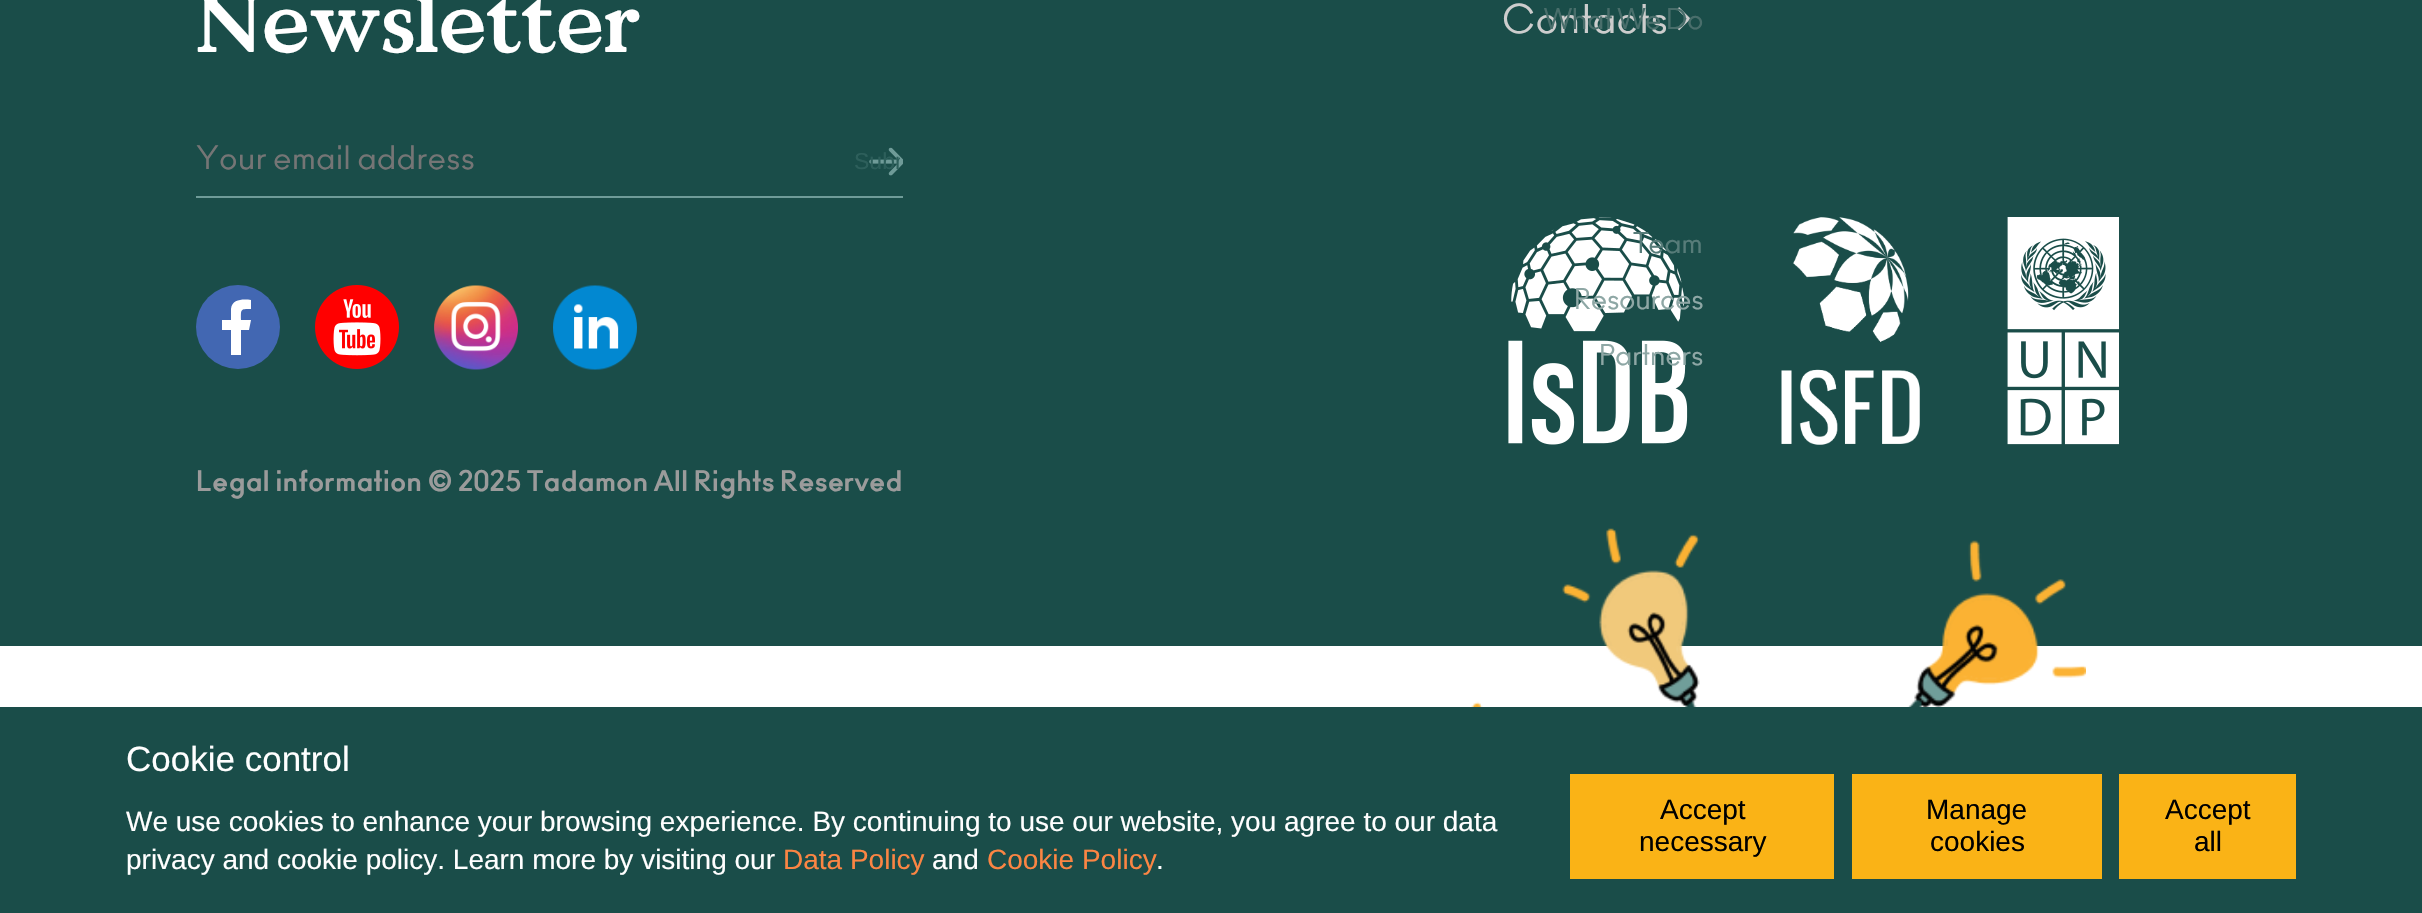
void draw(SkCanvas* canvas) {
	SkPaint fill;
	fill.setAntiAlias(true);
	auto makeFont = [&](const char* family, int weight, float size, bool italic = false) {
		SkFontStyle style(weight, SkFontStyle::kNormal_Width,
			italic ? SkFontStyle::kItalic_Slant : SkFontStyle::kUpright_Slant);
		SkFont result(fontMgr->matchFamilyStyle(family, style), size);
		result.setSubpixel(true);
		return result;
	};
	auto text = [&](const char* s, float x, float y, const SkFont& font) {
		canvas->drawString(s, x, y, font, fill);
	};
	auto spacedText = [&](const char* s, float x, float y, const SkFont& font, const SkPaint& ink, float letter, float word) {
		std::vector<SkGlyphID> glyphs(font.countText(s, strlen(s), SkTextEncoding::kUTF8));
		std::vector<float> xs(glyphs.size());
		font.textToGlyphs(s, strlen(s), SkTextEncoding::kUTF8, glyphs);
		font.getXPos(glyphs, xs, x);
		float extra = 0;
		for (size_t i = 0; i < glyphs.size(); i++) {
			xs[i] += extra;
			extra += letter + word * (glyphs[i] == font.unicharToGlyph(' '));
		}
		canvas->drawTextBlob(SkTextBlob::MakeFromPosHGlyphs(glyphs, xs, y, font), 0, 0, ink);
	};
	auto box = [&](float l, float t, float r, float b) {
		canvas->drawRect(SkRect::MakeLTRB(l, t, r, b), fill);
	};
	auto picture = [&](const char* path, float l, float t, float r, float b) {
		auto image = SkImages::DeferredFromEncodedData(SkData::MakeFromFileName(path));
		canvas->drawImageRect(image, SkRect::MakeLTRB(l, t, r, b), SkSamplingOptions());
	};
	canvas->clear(0xFF1A4D49);
	fill.setColor(0xFF6F9B98);
	box(196, 196, 903, 198);
	picture("image0.png", 869, 147, 903, 176);
	fill.setColor(0xFF4267B2);
	canvas->drawCircle(238, 327, 42, fill);
	fill.setColor(0xFFFFFFFF);
	canvas->drawPath(SkPathBuilder().moveTo(241, 355).lineTo(241, 330).lineTo(249, 330).lineTo(251, 320).lineTo(241, 320).cubicTo(241, 309, 240, 309, 251, 309).lineTo(251, 300).cubicTo(243, 299, 232, 299, 231, 309).lineTo(231, 320).lineTo(222, 320).lineTo(222, 330).lineTo(231, 330).lineTo(231, 355).close().detach(), fill);
	picture("image1.png", 315, 285, 399, 369);
	picture("image2.png", 434, 285, 518, 370);
	picture("image3.png", 553, 285, 637, 370);
	picture("image4.png", 1508, 217, 1688, 445);
	picture("image5.png", 1781, 217, 1920, 445);
	picture("image6.png", 2007, 217, 2119, 445);
	box(0, 646, 2422, 707);
	picture("image7.png", 1471, 528, 2086, 707);
	fill.setColor(0xFFFAB316);
	box(1570, 774, 1834, 879);
	box(1852, 774, 2102, 879);
	box(2119, 774, 2296, 879);
	auto font1 = makeFont("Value", 500, 83.75f);
	fill.setColor(0xFFFFFFFF);
	text("Newsletter", 196, 52, font1);
	auto font2 = makeFont("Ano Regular", 400, 31.5f);
	fill.setColor(0xFF757575);
	text("Your email address", 196, 169, font2);
	canvas->save();
	canvas->clipRect(SkRect::MakeLTRB(854, 138, 900, 184));
	auto font3 = makeFont("Liberation Sans", 400, 23);
	fill.setColor(0xFF2D5F5B);
	text("Subm", 854, 169, font3);
	canvas->restore();
	auto font4 = makeFont("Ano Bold", 700, 27.75f);
	fill.setColor(0xFF9B9B9B);
	text("Legal information © 2025 Tadamon All Rights Reserved", 196, 491, font4);
	auto font5 = makeFont("Ano Regular", 400, 38.5f);
	fill.setColor(0xFFCDCDCD);
	text("Contacts >", 1502, 33, font5);
	auto font6 = makeFont("Ano Regular", 400, 28);
	fill.setColor(0xFF496E6B);
	spacedText("What We Do", 1544, 29, font6, fill, -0.5f, 0);
	fill.setColor(0xFF577C79);
	spacedText("Team", 1633, 253, font6, fill, -0.5f, 0);
	fill.setColor(0xFF8EA7A5);
	spacedText("Resources", 1574, 309, font6, fill, -0.5f, 0);
	spacedText("Partners", 1599, 365, font6, fill, -0.5f, 0);
	auto font7 = makeFont("Liberation Sans", 400, 35);
	fill.setColor(0xFFFFFFFF);
	text("Cookie control", 126, 771, font7);
	auto font8 = makeFont("Liberation Sans", 400, 28);
	text("We use cookies to enhance your browsing experience. By continuing to use our website, you agree to our data", 126, 831, font8);
	text("privacy and cookie policy. Learn more by visiting our", 126, 869, font8);
	fill.setColor(0xFFFB8543);
	text("Data Policy", 783, 869, font8);
	fill.setColor(0xFFFFFFFF);
	text("and", 932, 869, font8);
	fill.setColor(0xFFFB8543);
	text("Cookie Policy", 987, 869, font8);
	fill.setColor(0xFFFFFFFF);
	text(".", 1156, 869, font8);
	fill.setColor(0xFF000000);
	text("Accept", 1660, 819, font8);
	text("necessary", 1639, 851, font8);
	text("Manage", 1926, 819, font8);
	text("cookies", 1930, 851, font8);
	text("Accept", 2165, 819, font8);
	text("all", 2194, 851, font8);
}
